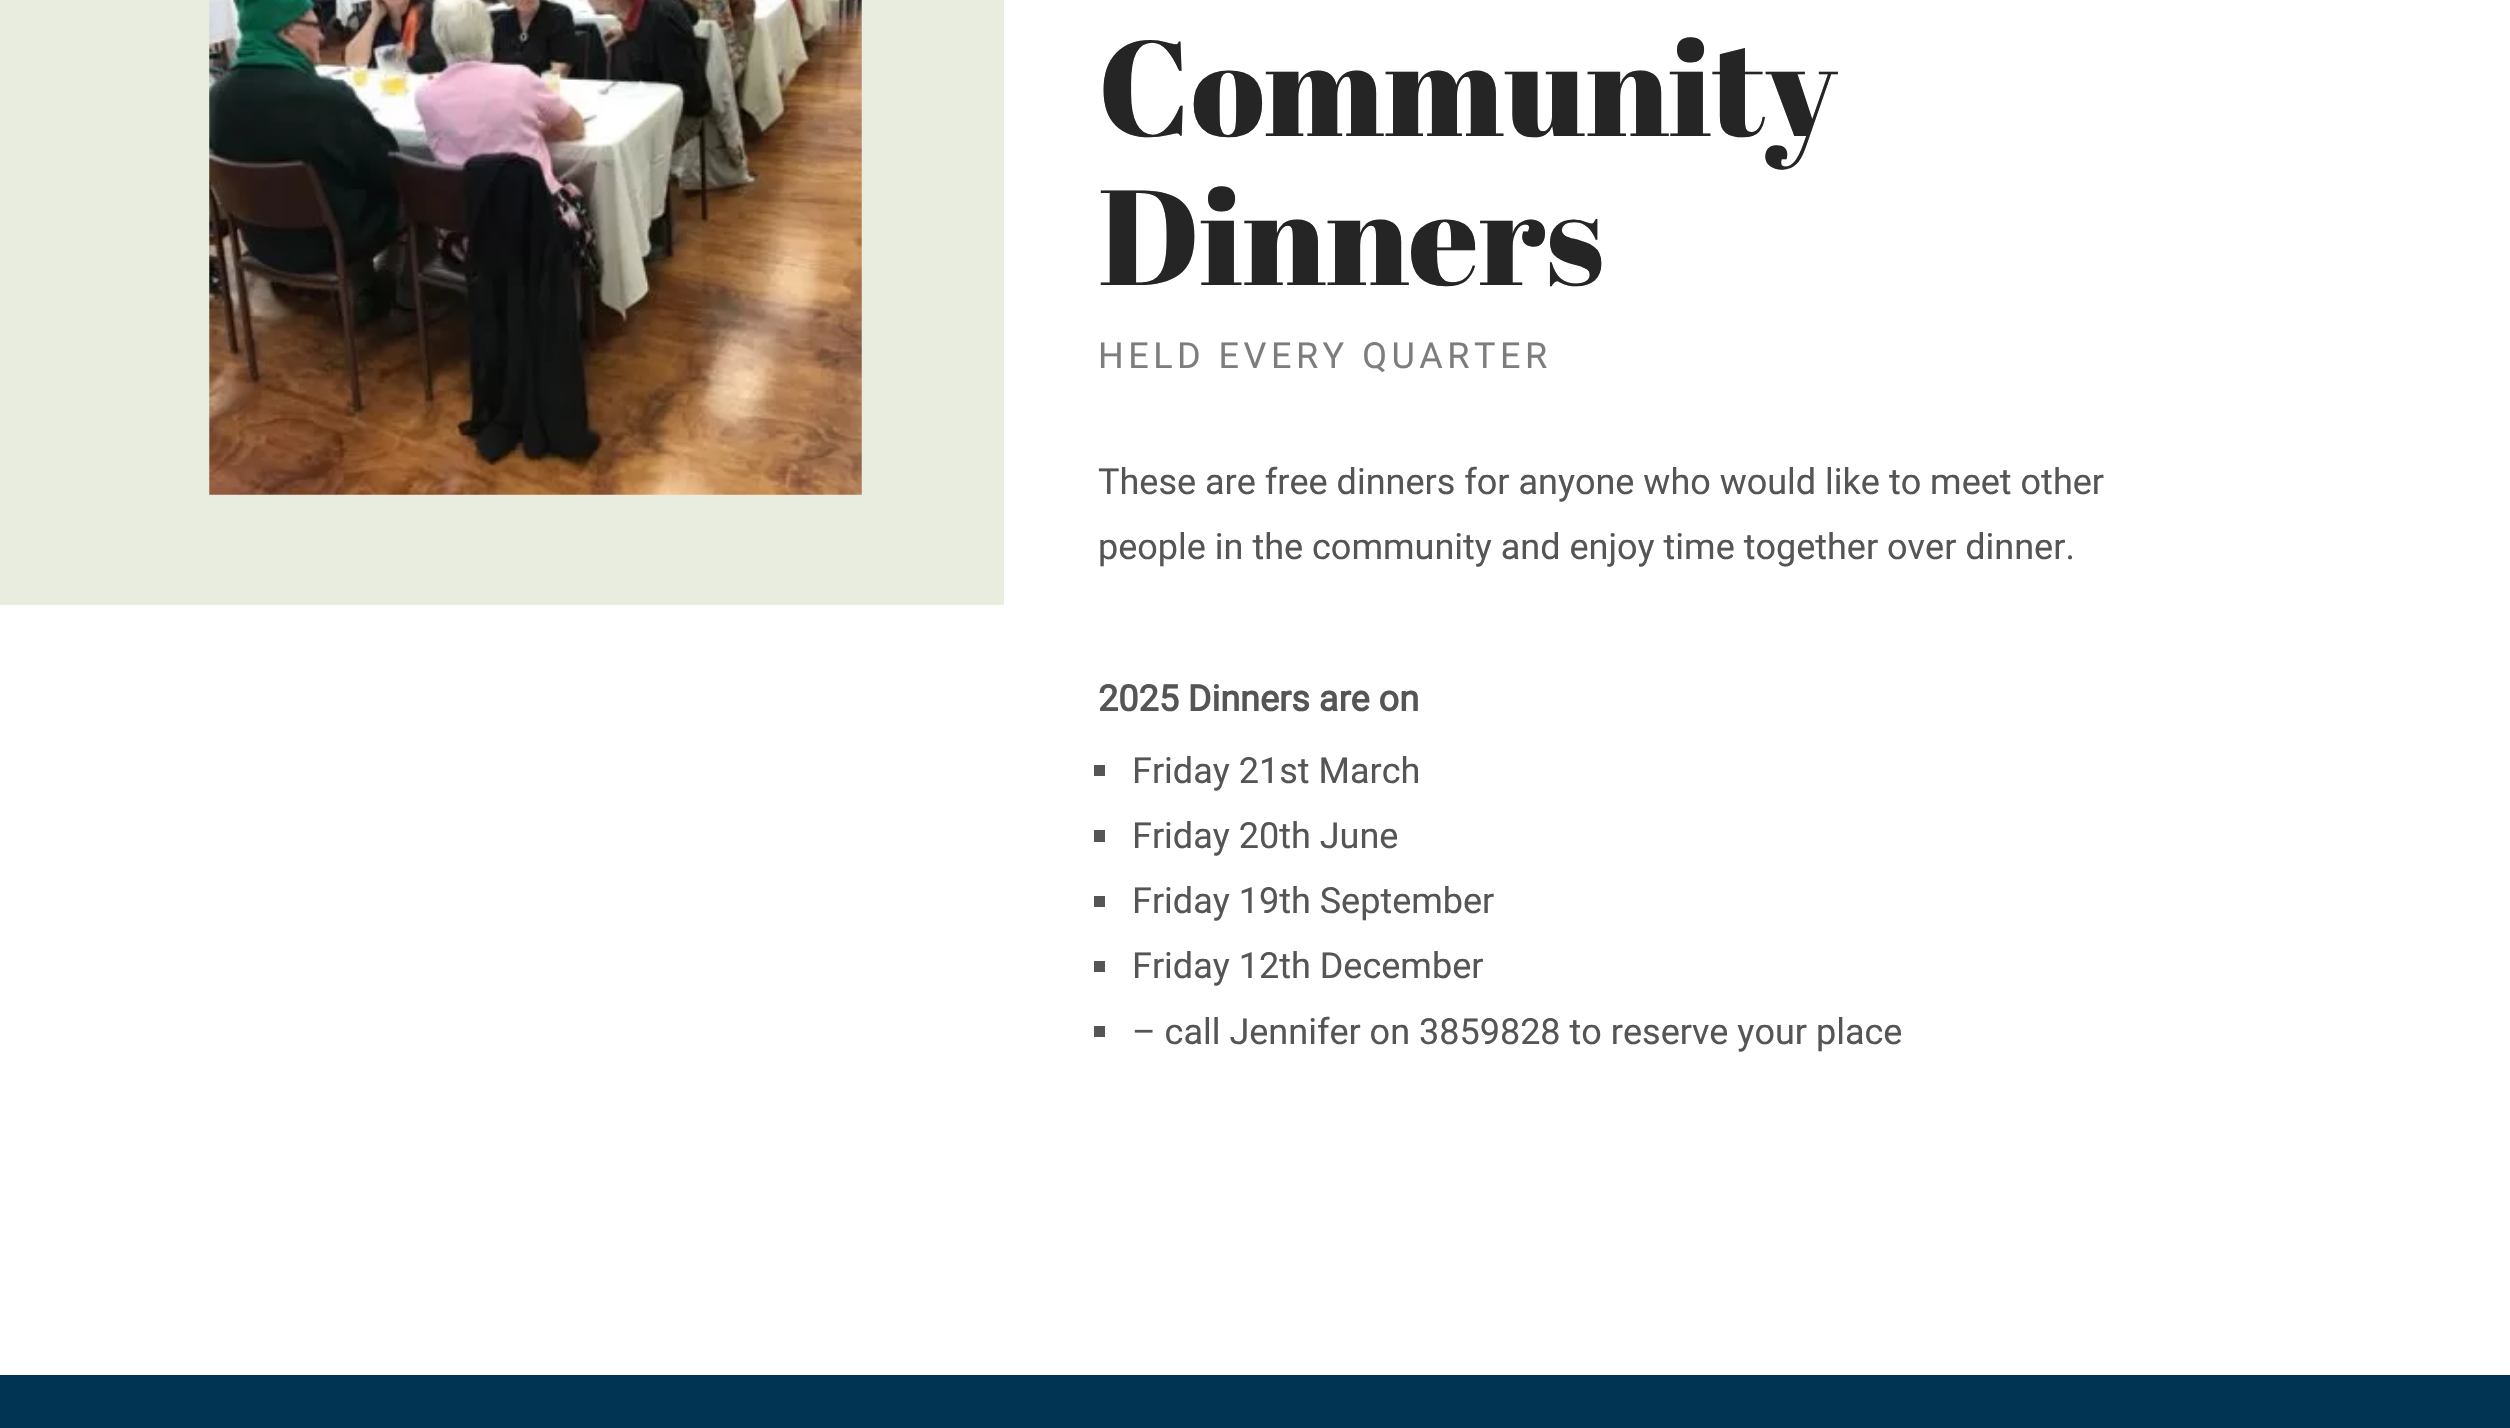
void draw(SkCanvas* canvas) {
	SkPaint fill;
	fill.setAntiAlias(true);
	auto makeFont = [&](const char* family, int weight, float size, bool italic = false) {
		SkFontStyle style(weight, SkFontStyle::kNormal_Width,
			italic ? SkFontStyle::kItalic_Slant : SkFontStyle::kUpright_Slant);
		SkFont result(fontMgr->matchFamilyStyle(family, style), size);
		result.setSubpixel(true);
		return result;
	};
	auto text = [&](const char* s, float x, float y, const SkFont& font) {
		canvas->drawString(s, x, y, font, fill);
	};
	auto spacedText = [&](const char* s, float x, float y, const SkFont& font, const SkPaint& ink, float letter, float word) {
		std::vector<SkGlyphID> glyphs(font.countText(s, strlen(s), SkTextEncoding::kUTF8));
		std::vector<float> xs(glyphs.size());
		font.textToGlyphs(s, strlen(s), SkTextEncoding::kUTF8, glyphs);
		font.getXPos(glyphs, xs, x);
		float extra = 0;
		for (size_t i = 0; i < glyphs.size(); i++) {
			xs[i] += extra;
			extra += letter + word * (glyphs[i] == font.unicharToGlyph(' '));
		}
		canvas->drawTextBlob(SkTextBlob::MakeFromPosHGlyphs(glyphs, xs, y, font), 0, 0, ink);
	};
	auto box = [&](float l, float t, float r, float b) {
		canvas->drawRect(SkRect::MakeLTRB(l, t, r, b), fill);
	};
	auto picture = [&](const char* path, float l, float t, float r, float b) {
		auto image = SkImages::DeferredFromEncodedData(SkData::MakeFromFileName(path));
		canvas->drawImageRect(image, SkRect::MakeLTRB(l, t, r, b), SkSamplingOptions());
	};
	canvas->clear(0xFFFFFFFF);
	fill.setColor(0xFFE8EDDF);
	box(0, 0, 1004, 605);
	picture("image0.png", 209, 0, 862, 495);
	fill.setColor(0xFF555555);
	box(1094, 765, 1105, 776);
	box(1094, 830, 1105, 842);
	box(1094, 896, 1105, 907);
	box(1094, 961, 1105, 972);
	box(1094, 1026, 1105, 1037);
	fill.setColor(0xFF013453);
	box(0, 1375, 2510, 1428);
	auto font1 = makeFont("Abril Fatface", 400, 135);
	fill.setColor(0xFF252525);
	text("Community", 1098, 136, font1);
	text("Dinners", 1098, 285, font1);
	auto font2 = makeFont("Roboto", 400, 36);
	fill.setColor(0xFF7D7D7D);
	spacedText("HELD EVERY QUARTER", 1098, 368, font2, fill, 4.5f, 0);
	fill.setColor(0xFF555555);
	text("These are free dinners for anyone who would like to meet other", 1098, 494, font2);
	text("people in the community and enjoy time together over dinner.", 1098, 559, font2);
	auto font3 = makeFont("Roboto", 700, 36);
	text("2025 Dinners are on", 1098, 711, font3);
	text("Friday 21st March", 1132, 783, font2);
	text("Friday 20th June", 1132, 848, font2);
	text("Friday 19th September", 1132, 913, font2);
	text("Friday 12th December", 1132, 978, font2);
	text("– call Jennifer on 3859828 to reserve your place", 1132, 1044, font2);
}
